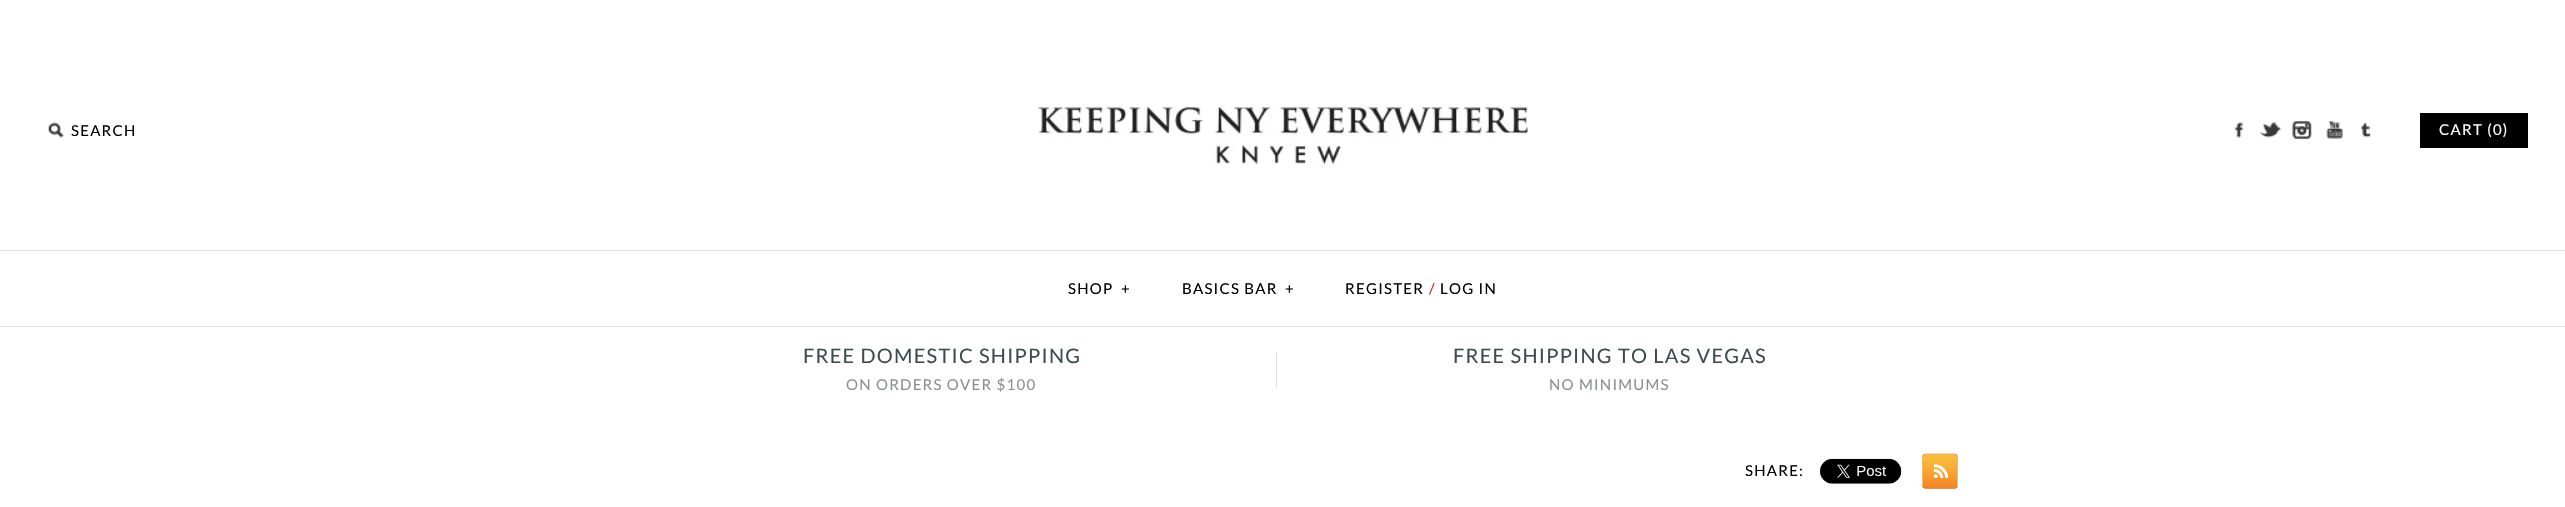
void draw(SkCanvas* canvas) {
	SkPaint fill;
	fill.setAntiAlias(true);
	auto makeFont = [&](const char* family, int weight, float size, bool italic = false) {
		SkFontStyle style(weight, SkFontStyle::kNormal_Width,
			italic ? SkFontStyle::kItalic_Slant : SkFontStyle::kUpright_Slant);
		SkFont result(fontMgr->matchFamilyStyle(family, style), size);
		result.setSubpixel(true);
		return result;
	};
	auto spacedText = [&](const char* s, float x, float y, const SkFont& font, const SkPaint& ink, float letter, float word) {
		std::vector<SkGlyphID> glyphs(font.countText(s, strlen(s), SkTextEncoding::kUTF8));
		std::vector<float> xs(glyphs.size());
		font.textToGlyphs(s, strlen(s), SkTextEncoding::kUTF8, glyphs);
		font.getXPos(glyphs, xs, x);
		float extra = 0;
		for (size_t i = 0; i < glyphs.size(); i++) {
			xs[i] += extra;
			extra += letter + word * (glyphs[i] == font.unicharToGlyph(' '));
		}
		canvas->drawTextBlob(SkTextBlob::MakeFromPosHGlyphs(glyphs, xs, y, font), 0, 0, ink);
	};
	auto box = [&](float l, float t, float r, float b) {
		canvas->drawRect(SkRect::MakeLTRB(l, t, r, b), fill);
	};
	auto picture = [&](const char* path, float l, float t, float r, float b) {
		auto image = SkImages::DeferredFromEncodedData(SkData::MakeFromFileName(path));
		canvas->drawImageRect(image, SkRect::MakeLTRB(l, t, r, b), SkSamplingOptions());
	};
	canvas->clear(0xFFFFFFFF);
	picture("image0.png", 1038, 105, 1528, 165);
	picture("image1.png", 48, 122, 64, 138);
	picture("image2.png", 2234, 122, 2243, 138);
	picture("image3.png", 2260, 122, 2282, 138);
	picture("image4.png", 2292, 121, 2312, 139);
	picture("image5.png", 2326, 121, 2343, 139);
	picture("image6.png", 2361, 122, 2371, 138);
	fill.setColor(0xFF000000);
	box(2420, 113, 2528, 148);
	fill.setColor(0xFFE0E0E0);
	box(0, 326, 2565, 327);
	fill.setColor(0xFFDDDDDD);
	box(0, 250, 2565, 251);
	fill.setColor(0xFFE0E0E0);
	box(1276, 353, 1277, 388);
	picture("image7.png", 1820, 458, 1902, 484);
	picture("image8.png", 1922, 453, 1958, 489);
	auto font1 = makeFont("Lato", 400, 15);
	fill.setColor(0xFF000000);
	spacedText("SEARCH", 71, 136, font1, fill, 1.25f, 0);
	fill.setColor(0xFFFFFFFF);
	spacedText("CART (0)", 2439, 135, font1, fill, 1.25f, 0);
	fill.setColor(0xFF000000);
	spacedText("SHOP", 1068, 294, font1, fill, 1.25f, 0);
	spacedText("+", 1121, 294, font1, fill, 1.25f, 0);
	spacedText("BASICS BAR", 1182, 294, font1, fill, 1.25f, 0);
	spacedText("+", 1285, 294, font1, fill, 1.25f, 0);
	spacedText("REGISTER", 1345, 294, font1, fill, 1.25f, 0);
	fill.setColor(0xFFC1272D);
	spacedText("/", 1429, 294, font1, fill, 1.25f, 0);
	fill.setColor(0xFF000000);
	spacedText("LOG IN", 1440, 294, font1, fill, 1.25f, 0);
	auto font2 = makeFont("Lato", 400, 20);
	fill.setColor(0xFF3D4C4F);
	spacedText("FREE DOMESTIC SHIPPING", 803, 363, font2, fill, 1.25f, 0);
	fill.setColor(0xFF8A8F93);
	spacedText("ON ORDERS OVER $100", 846, 390, font1, fill, 1.25f, 0);
	fill.setColor(0xFF3D4C4F);
	spacedText("FREE SHIPPING TO LAS VEGAS", 1453, 363, font2, fill, 1.25f, 0);
	fill.setColor(0xFF8A8F93);
	spacedText("NO MINIMUMS", 1549, 390, font1, fill, 1.25f, 0);
	fill.setColor(0xFF000000);
	spacedText("SHARE:", 1745, 476, font1, fill, 1.25f, 0);
}
